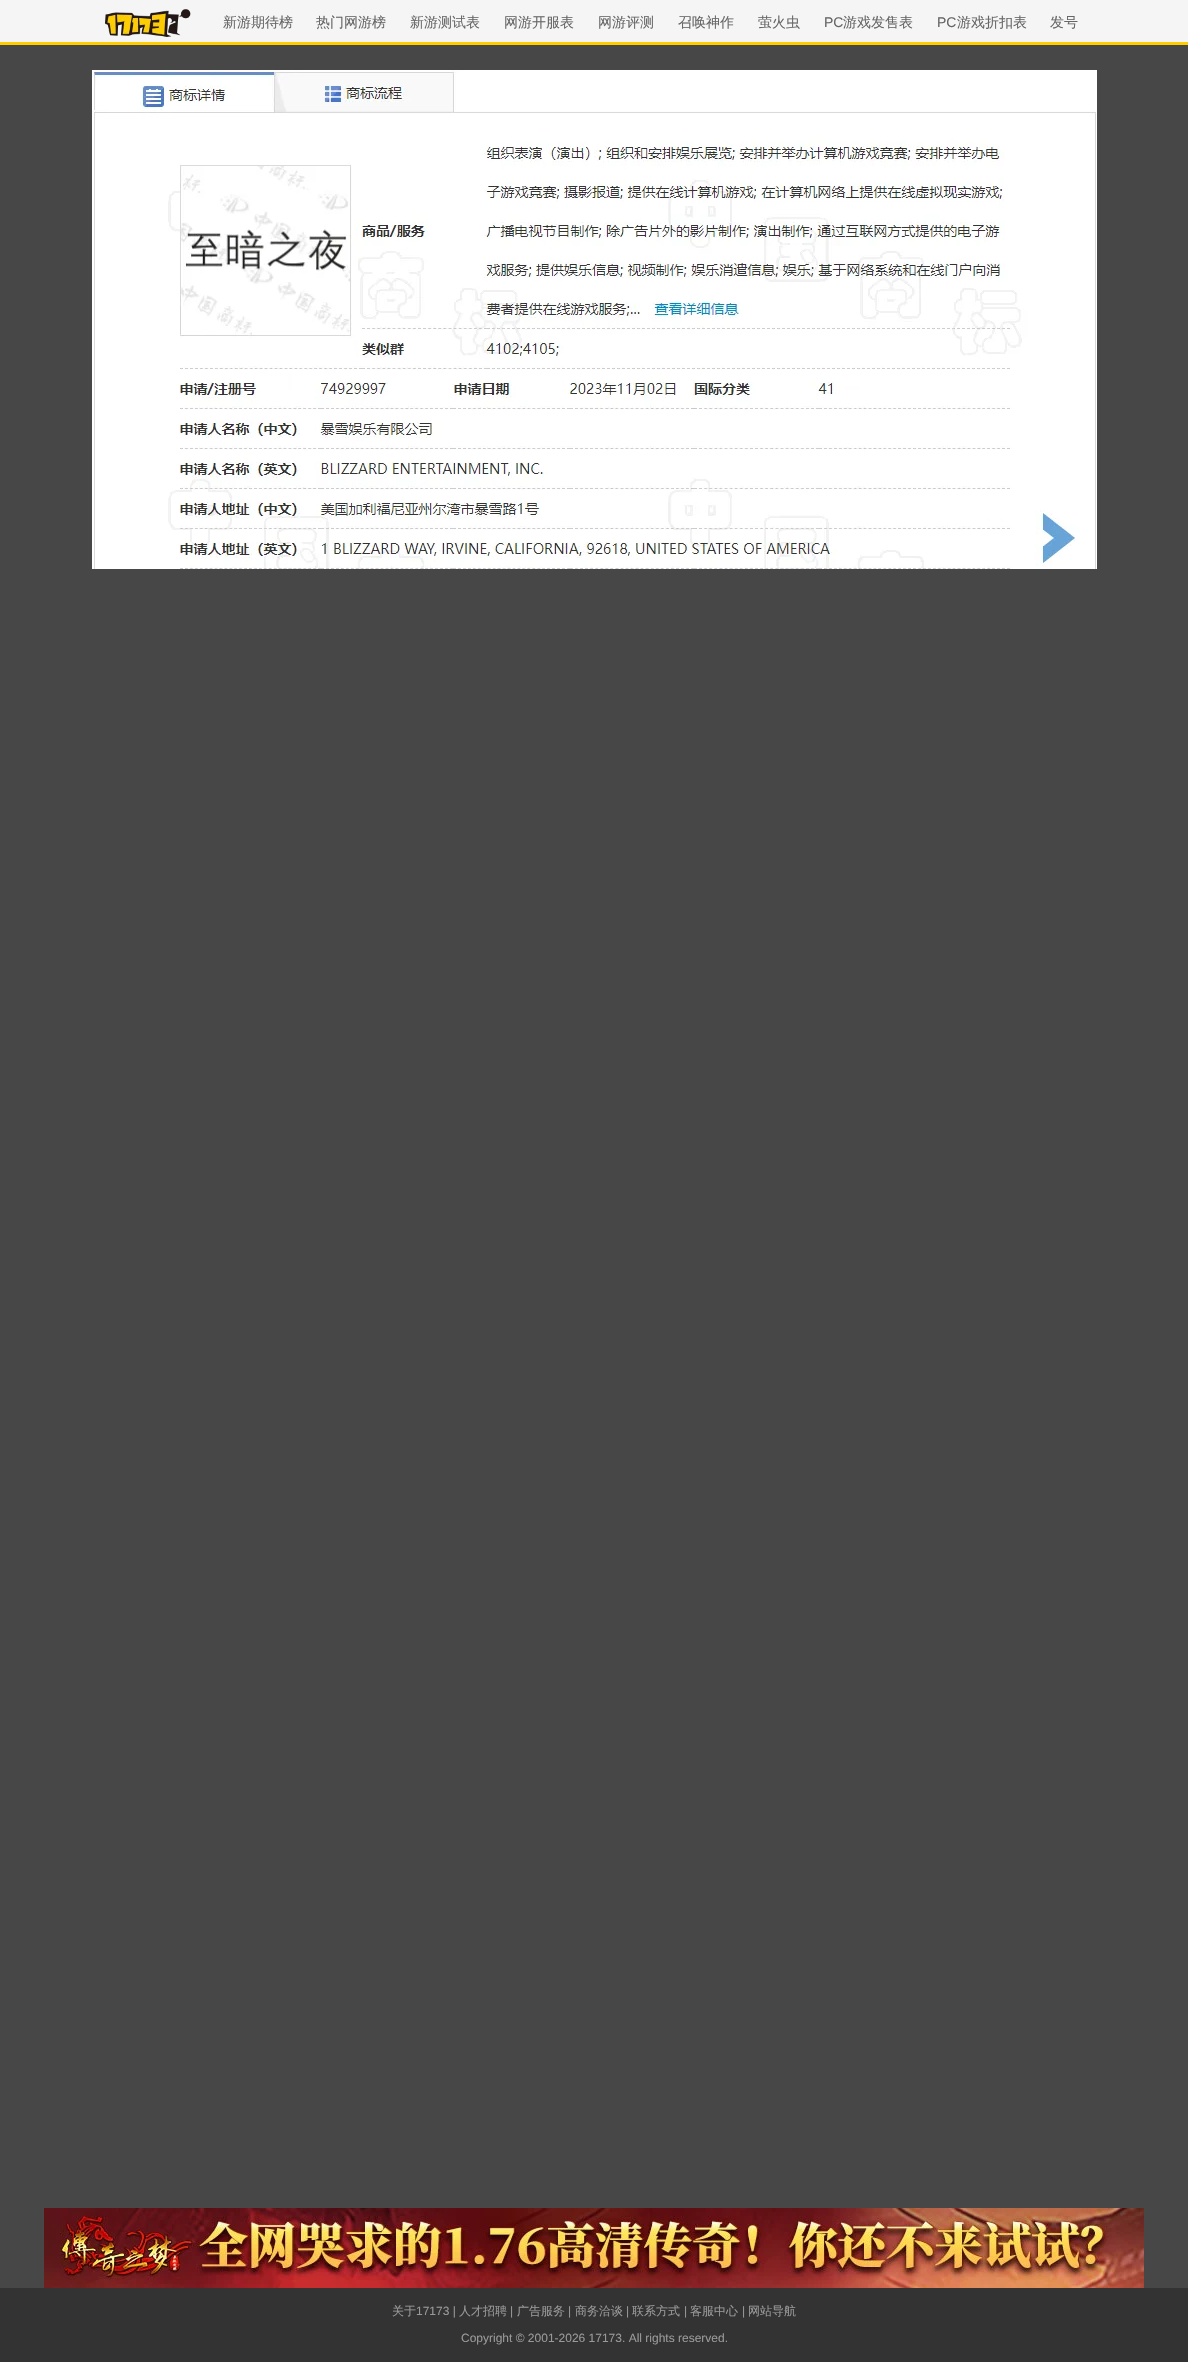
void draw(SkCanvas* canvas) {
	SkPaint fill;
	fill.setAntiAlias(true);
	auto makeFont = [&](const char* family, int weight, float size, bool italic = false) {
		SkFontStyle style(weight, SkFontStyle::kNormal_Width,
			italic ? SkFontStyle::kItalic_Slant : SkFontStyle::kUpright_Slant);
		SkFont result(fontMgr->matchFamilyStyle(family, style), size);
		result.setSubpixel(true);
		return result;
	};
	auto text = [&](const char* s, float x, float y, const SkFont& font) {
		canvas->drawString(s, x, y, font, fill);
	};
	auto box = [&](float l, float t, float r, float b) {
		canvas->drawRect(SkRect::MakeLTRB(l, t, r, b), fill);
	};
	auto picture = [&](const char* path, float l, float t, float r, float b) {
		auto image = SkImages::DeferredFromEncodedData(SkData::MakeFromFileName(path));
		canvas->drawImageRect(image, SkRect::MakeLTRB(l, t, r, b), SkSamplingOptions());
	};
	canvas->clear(0xFF474747);
	fill.setColor(0xFFF5F5F5);
	box(0, 0, 1188, 42);
	fill.setColor(0xFFFFCD00);
	box(0, 42, 1188, 45);
	picture("image0.png", 105, 9, 191, 37);
	picture("image1.png", 92, 70, 1097, 569);
	picture("image2.png", 44, 2208, 1144, 2288);
	fill.setColor(0xFF333333);
	box(0, 2288, 1188, 2362);
	auto font1 = makeFont("WenQuanYi Zen Hei", 500, 14);
	fill.setColor(0xFF666666);
	text("新游期待榜", 223, 27, font1);
	text("热门网游榜", 316, 27, font1);
	text("新游测试表", 410, 27, font1);
	text("网游开服表", 504, 27, font1);
	text("网游评测", 598, 27, font1);
	text("召唤神作", 678, 27, font1);
	text("萤火虫", 758, 27, font1);
	auto font2 = makeFont("Liberation Sans", 400, 14);
	text("PC", 824, 27, font2);
	text("游戏发售表", 843, 27, font1);
	text("PC", 937, 27, font2);
	text("游戏折扣表", 957, 27, font1);
	text("发号", 1050, 27, font1);
	auto font3 = makeFont("WenQuanYi Zen Hei", 500, 12);
	fill.setColor(0xFF999999);
	text("关于", 392, 2315, font3);
	auto font4 = makeFont("Liberation Sans", 400, 12);
	text("17173 |", 416, 2315, font4);
	text("人才招聘", 459, 2315, font3);
	text("|", 510, 2315, font4);
	text("广告服务", 517, 2315, font3);
	text("|", 568, 2315, font4);
	text("商务洽谈", 575, 2315, font3);
	text("|", 626, 2315, font4);
	text("联系方式", 632, 2315, font3);
	text("|", 684, 2315, font4);
	text("客服中心", 690, 2315, font3);
	text("|", 742, 2315, font4);
	text("网站导航", 748, 2315, font3);
	text("Copyright © 2001-2026 17173. All rights reserved.", 461, 2342, font4);
}
